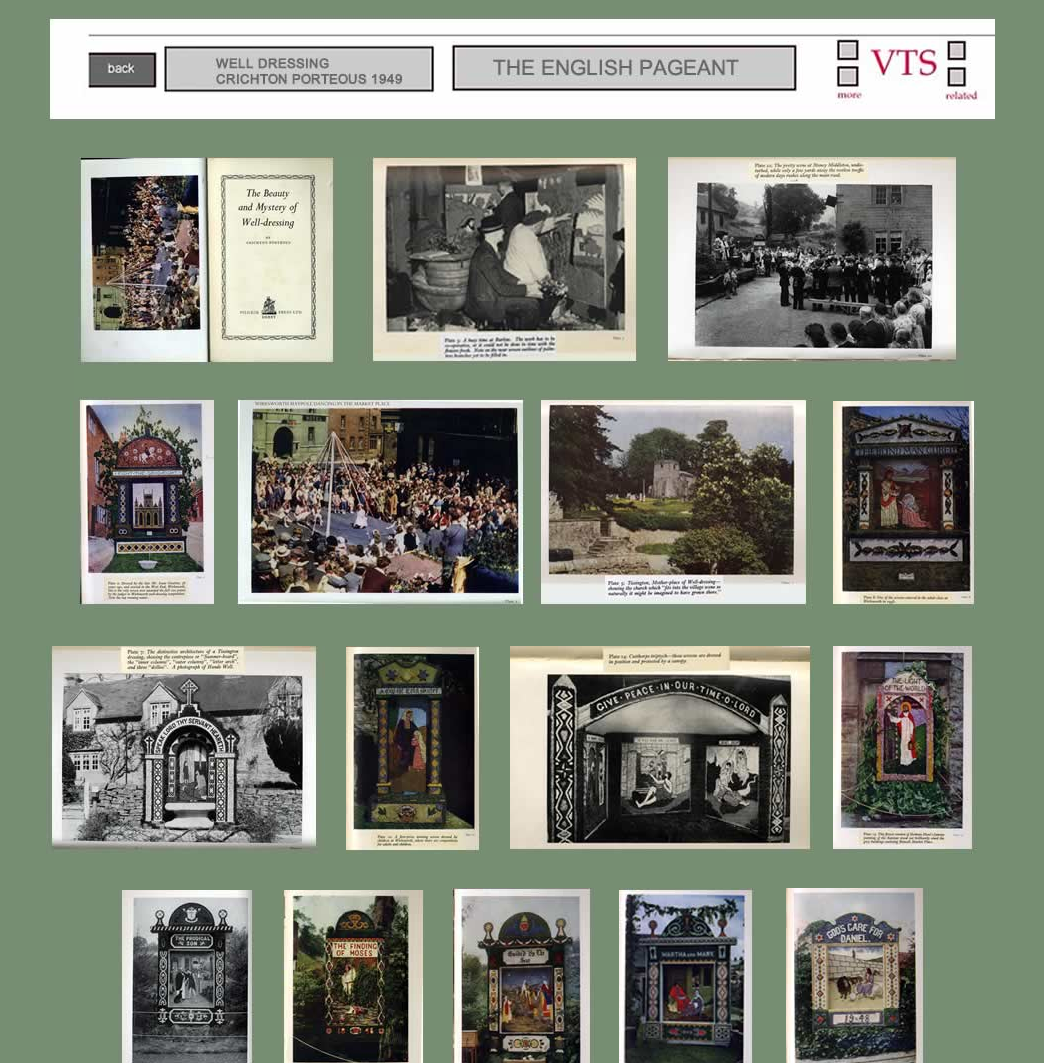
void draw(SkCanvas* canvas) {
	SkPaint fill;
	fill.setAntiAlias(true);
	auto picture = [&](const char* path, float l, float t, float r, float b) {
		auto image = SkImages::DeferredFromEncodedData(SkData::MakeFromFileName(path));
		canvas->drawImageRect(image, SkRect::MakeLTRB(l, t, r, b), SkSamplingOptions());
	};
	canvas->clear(0xFF768E72);
	picture("image0.png", 46, 15, 164, 121);
	picture("image1.png", 164, 15, 451, 121);
	picture("image2.png", 451, 15, 819, 121);
	picture("image3.png", 819, 15, 996, 121);
	picture("image4.png", 74, 157, 381, 401);
	picture("image5.png", 381, 157, 660, 401);
	picture("image6.png", 660, 157, 964, 401);
	picture("image7.png", 70, 401, 215, 609);
	picture("image8.png", 237, 401, 526, 609);
	picture("image9.png", 533, 401, 813, 609);
	picture("image10.png", 833, 401, 977, 609);
	picture("image11.png", 46, 646, 325, 854);
	picture("image12.png", 346, 646, 486, 854);
	picture("image13.png", 510, 646, 814, 854);
	picture("image14.png", 833, 646, 977, 854);
	picture("image15.png", 118, 890, 255, 1063);
	picture("image16.png", 281, 890, 425, 1063);
	picture("image17.png", 451, 888, 595, 1063);
	picture("image18.png", 619, 888, 755, 1063);
	picture("image19.png", 786, 888, 930, 1063);
}
